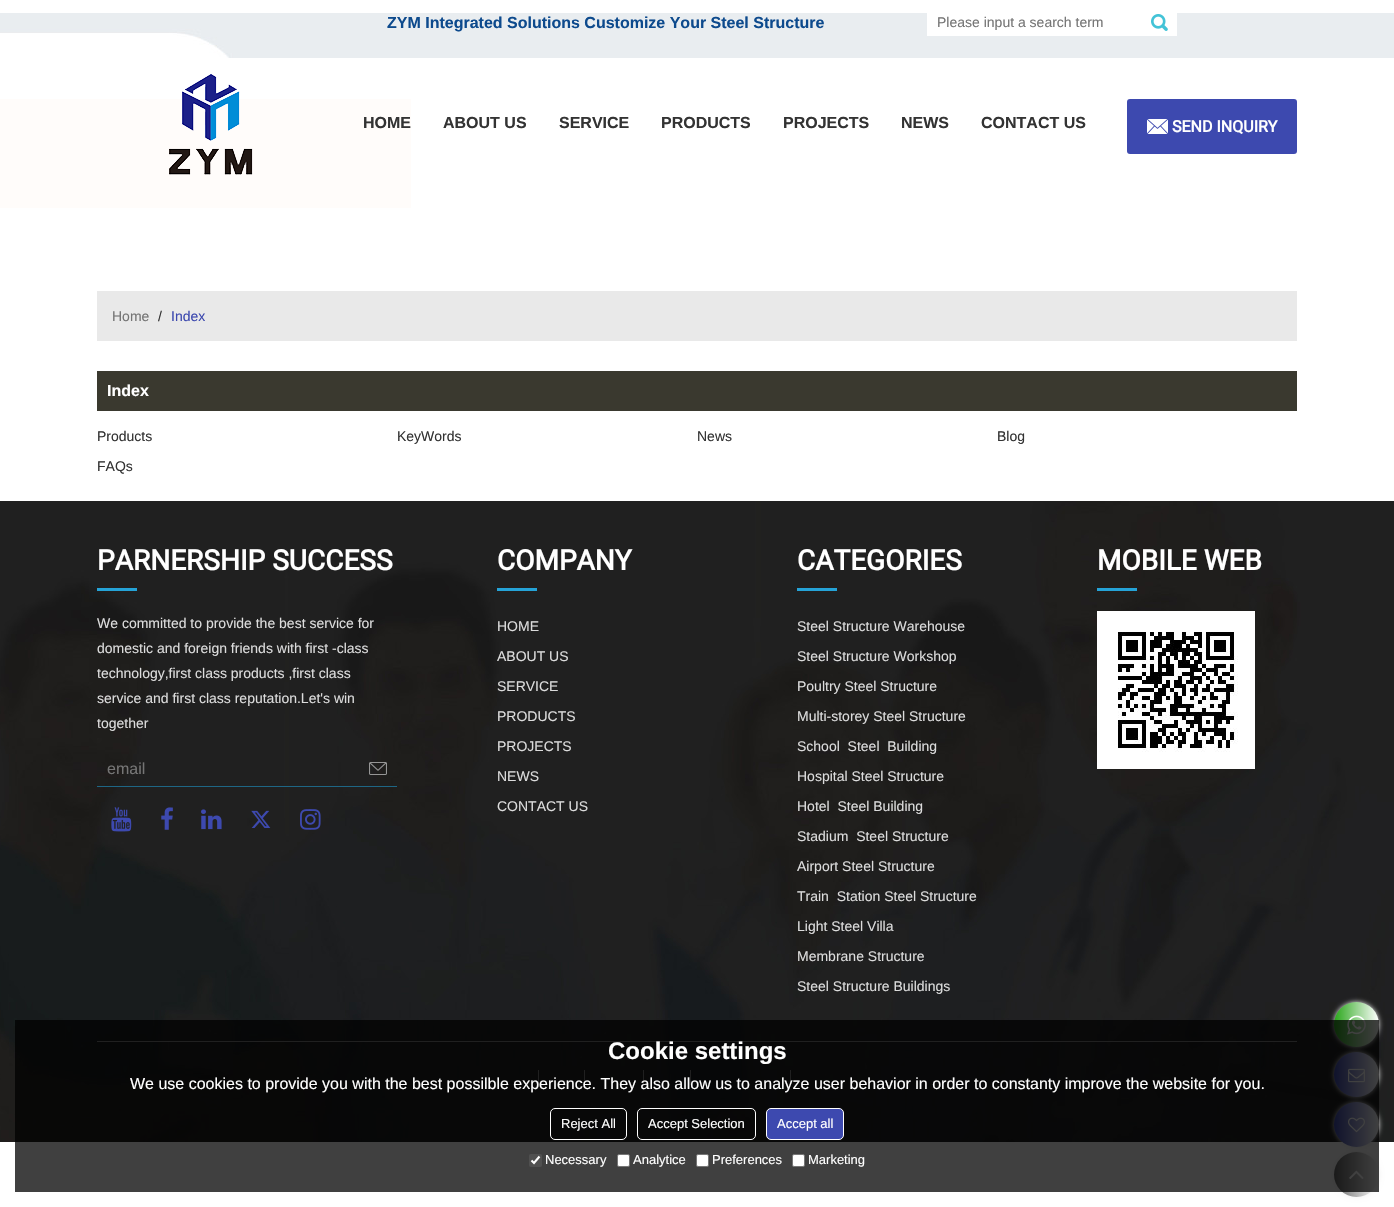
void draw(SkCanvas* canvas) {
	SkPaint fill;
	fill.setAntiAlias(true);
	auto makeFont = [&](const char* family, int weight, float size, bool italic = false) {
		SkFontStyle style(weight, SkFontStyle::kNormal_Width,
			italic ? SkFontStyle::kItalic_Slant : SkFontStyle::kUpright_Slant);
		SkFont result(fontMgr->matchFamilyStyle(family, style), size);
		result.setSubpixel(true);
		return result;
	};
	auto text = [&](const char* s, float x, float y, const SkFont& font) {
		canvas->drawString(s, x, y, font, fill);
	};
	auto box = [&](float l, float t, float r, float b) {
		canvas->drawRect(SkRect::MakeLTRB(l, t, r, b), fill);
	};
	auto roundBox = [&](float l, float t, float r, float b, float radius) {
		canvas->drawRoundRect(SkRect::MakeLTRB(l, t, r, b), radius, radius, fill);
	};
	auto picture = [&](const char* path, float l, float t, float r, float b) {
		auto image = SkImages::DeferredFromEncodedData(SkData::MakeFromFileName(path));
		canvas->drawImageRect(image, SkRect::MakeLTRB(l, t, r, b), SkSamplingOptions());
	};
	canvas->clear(0xFFFFFFFF);
	picture("image0.png", 0, 501, 1394, 1142);
	picture("image1.png", 0, 13, 1394, 58);
	fill.setColor(0xFFFFFFFF);
	box(927, 13, 1177, 36);
	picture("image2.png", 1151, 14, 1168, 31);
	fill.setColor(0xFFFFFCFA);
	box(0, 99, 411, 208);
	picture("image3.png", 169, 74, 253, 175);
	fill.setColor(0xFF3D49AF);
	roundBox(1127, 99, 1297, 154, 3);
	picture("image4.png", 1147, 119, 1168, 134);
	fill.setColor(0xFFE9E9E9);
	box(97, 291, 1297, 341);
	fill.setColor(0xFF3A392F);
	box(97, 371, 1297, 411);
	fill.setColor(0xFF25A3D7);
	box(97, 588, 137, 591);
	fill.setColor(0xFF1E6685);
	box(97, 786, 397, 787);
	picture("image5.png", 369, 762, 387, 775);
	picture("image6.png", 111, 807, 132, 832);
	picture("image7.png", 161, 807, 173, 830);
	picture("image8.png", 201, 809, 222, 830);
	picture("image9.png", 251, 810, 271, 828);
	picture("image10.png", 300, 809, 321, 830);
	fill.setColor(0xFF25A3D7);
	box(497, 588, 537, 591);
	box(797, 588, 837, 591);
	box(1097, 588, 1137, 591);
	fill.setStyle(SkPaint::kStroke_Style);
	fill.setStrokeWidth(5);
	fill.setColor(0xFFFFFFFF);
	canvas->drawRect(SkRect::MakeLTRB(1099.5f, 613.5f, 1252.5f, 766.5f), fill);
	picture("image11.png", 1102, 616, 1250, 764);
	fill.setStyle(SkPaint::kFill_Style);
	fill.setColor(0xFF7D7D7D);
	box(97, 1041, 1297, 1042);
	box(538, 1070, 539, 1084);
	box(584, 1070, 585, 1084);
	box(643, 1070, 644, 1084);
	box(690, 1070, 691, 1084);
	box(790, 1070, 791, 1084);
	fill.setColor(0xFFEEEEEE);
	fill.setMaskFilter(SkMaskFilter::MakeBlur(kNormal_SkBlurStyle, 2.5f));
	canvas->drawRoundRect(SkRect::MakeLTRB(1334, 1002, 1379, 1047), 22.5f, 22.5f, fill);
	fill.setMaskFilter(nullptr);
	{
		const SkColor colors[] = {0xFF29A61A, 0xFFFFFFFF};
		const float stops[] = {0, 1};
		const SkPoint ends[] = {{1334, 1025}, {1379, 1025}};
		fill.setShader(SkGradientShader::MakeLinear(ends, colors, stops, 2, SkTileMode::kClamp));
		fill.setAlpha(255);
	}
	canvas->drawCircle(1356.5f, 1024.5f, 22.5f, fill);
	picture("image12.png", 1347, 1015, 1366, 1035);
	fill.setShader(nullptr);
	fill.setColor(0xFFEEEEEE);
	fill.setMaskFilter(SkMaskFilter::MakeBlur(kNormal_SkBlurStyle, 2.5f));
	canvas->drawRoundRect(SkRect::MakeLTRB(1334, 1052, 1379, 1097), 22.5f, 22.5f, fill);
	fill.setMaskFilter(nullptr);
	{
		const SkColor colors[] = {0xFF3D49AF, 0xFFFFFFFF};
		const float stops[] = {0, 1};
		const SkPoint ends[] = {{1334, 1075}, {1379, 1075}};
		fill.setShader(SkGradientShader::MakeLinear(ends, colors, stops, 2, SkTileMode::kClamp));
		fill.setAlpha(255);
	}
	canvas->drawCircle(1356.5f, 1074.5f, 22.5f, fill);
	picture("image13.png", 1348, 1068, 1365, 1083);
	fill.setShader(nullptr);
	fill.setColor(0xFFEEEEEE);
	fill.setMaskFilter(SkMaskFilter::MakeBlur(kNormal_SkBlurStyle, 2.5f));
	canvas->drawRoundRect(SkRect::MakeLTRB(1334, 1102, 1379, 1147), 22.5f, 22.5f, fill);
	fill.setMaskFilter(nullptr);
	{
		const SkColor colors[] = {0xFF3D49AF, 0xFFFFFFFF};
		const float stops[] = {0, 1};
		const SkPoint ends[] = {{1334, 1125}, {1379, 1125}};
		fill.setShader(SkGradientShader::MakeLinear(ends, colors, stops, 2, SkTileMode::kClamp));
		fill.setAlpha(255);
	}
	canvas->drawCircle(1356.5f, 1124.5f, 22.5f, fill);
	picture("image14.png", 1348, 1117, 1365, 1133);
	fill.setShader(nullptr);
	fill.setColor(0xFFEEEEEE);
	fill.setMaskFilter(SkMaskFilter::MakeBlur(kNormal_SkBlurStyle, 2.5f));
	canvas->drawRoundRect(SkRect::MakeLTRB(1334, 1152, 1379, 1197), 22.5f, 22.5f, fill);
	fill.setMaskFilter(nullptr);
	{
		const SkColor colors[] = {0xFF666666, 0xFFFFFFFF};
		const float stops[] = {0, 1};
		const SkPoint ends[] = {{1334, 1175}, {1379, 1175}};
		fill.setShader(SkGradientShader::MakeLinear(ends, colors, stops, 2, SkTileMode::kClamp));
		fill.setAlpha(255);
	}
	canvas->drawCircle(1356.5f, 1174.5f, 22.5f, fill);
	picture("image15.png", 1349, 1170, 1364, 1179);
	fill.setShader(nullptr);
	fill.setColor(0xBF000000);
	box(15, 1020, 1379, 1192);
	fill.setStyle(SkPaint::kStroke_Style);
	fill.setStrokeWidth(1);
	fill.setColor(0xFFFFFFFF);
	canvas->drawRoundRect(SkRect::MakeLTRB(550.5f, 1108.5f, 626.5f, 1139.5f), 4.5f, 4.5f, fill);
	canvas->drawRoundRect(SkRect::MakeLTRB(637.5f, 1108.5f, 755.5f, 1139.5f), 4.5f, 4.5f, fill);
	fill.setStyle(SkPaint::kFill_Style);
	fill.setColor(0xFF3D49AF);
	canvas->drawRoundRect(SkRect::MakeLTRB(766.5f, 1108.5f, 843.5f, 1139.5f), 4.5f, 4.5f, fill);
	fill.setStyle(SkPaint::kStroke_Style);
	fill.setColor(0xFFFFFFFF);
	canvas->drawRoundRect(SkRect::MakeLTRB(766.5f, 1108.5f, 843.5f, 1139.5f), 4.5f, 4.5f, fill);
	fill.setStyle(SkPaint::kFill_Style);
	fill.setColor(0xFF505050);
	roundBox(529, 1154, 542, 1167, 2);
	fill.setStyle(SkPaint::kStroke_Style);
	fill.setStrokeWidth(2.1f);
	fill.setColor(0xFFFFFFFF);
	canvas->drawPath(SkPathBuilder().moveTo(531.5f, 1160.5f).lineTo(534, 1163).lineTo(539.5f, 1156.5f).detach(), fill);
	fill.setStyle(SkPaint::kFill_Style);
	canvas->drawRoundRect(SkRect::MakeLTRB(617.5f, 1154.5f, 629.5f, 1166.5f), 1.5f, 1.5f, fill);
	fill.setStyle(SkPaint::kStroke_Style);
	fill.setStrokeWidth(1);
	fill.setColor(0xFF767676);
	canvas->drawRoundRect(SkRect::MakeLTRB(617.5f, 1154.5f, 629.5f, 1166.5f), 1.5f, 1.5f, fill);
	fill.setStyle(SkPaint::kFill_Style);
	fill.setColor(0xFFFFFFFF);
	canvas->drawRoundRect(SkRect::MakeLTRB(696.5f, 1154.5f, 708.5f, 1166.5f), 1.5f, 1.5f, fill);
	fill.setStyle(SkPaint::kStroke_Style);
	fill.setColor(0xFF767676);
	canvas->drawRoundRect(SkRect::MakeLTRB(696.5f, 1154.5f, 708.5f, 1166.5f), 1.5f, 1.5f, fill);
	fill.setStyle(SkPaint::kFill_Style);
	fill.setColor(0xFFFFFFFF);
	canvas->drawRoundRect(SkRect::MakeLTRB(792.5f, 1154.5f, 804.5f, 1166.5f), 1.5f, 1.5f, fill);
	fill.setStyle(SkPaint::kStroke_Style);
	fill.setColor(0xFF767676);
	canvas->drawRoundRect(SkRect::MakeLTRB(792.5f, 1154.5f, 804.5f, 1166.5f), 1.5f, 1.5f, fill);
	auto font1 = makeFont("Liberation Sans", 700, 16);
	fill.setStyle(SkPaint::kFill_Style);
	fill.setColor(0xFF0D4A8D);
	text("ZYM Integrated Solutions Customize Your Steel Structure", 387, 28, font1);
	auto font2 = makeFont("Liberation Sans", 400, 14);
	fill.setColor(0xFF757575);
	text("Please input a search term", 937, 27, font2);
	fill.setColor(0xFF333333);
	text("HOME", 363, 128, font1);
	text("ABOUT US", 443, 128, font1);
	text("SERVICE", 559, 128, font1);
	text("PRODUCTS", 661, 128, font1);
	text("PROJECTS", 783, 128, font1);
	text("NEWS", 901, 128, font1);
	text("CONTACT US", 981, 128, font1);
	auto font3 = makeFont("Roboto", 700, 16);
	fill.setColor(0xFFFFFFFF);
	text("SEND INQUIRY", 1172, 132, font3);
	fill.setColor(0xFF757575);
	text("Home", 112, 321, font2);
	fill.setColor(0xFF333333);
	text("/", 158, 321, font2);
	fill.setColor(0xFF3D49AF);
	text("Index", 171, 321, font2);
	fill.setColor(0xFFFFFFFF);
	text("Index", 107, 396, font1);
	fill.setColor(0xFF333333);
	text("Products", 97, 441, font2);
	text("KeyWords", 397, 441, font2);
	text("News", 697, 441, font2);
	text("Blog", 997, 441, font2);
	text("FAQs", 97, 471, font2);
	auto font4 = makeFont("Roboto", 700, 28);
	fill.setColor(0xFFFFFFFF);
	text("PARNERSHIP SUCCESS", 97, 570, font4);
	fill.setColor(0xFFDCDCDC);
	text("We committed to provide the best service for", 97, 628, font2);
	text("domestic and foreign friends with first -class", 97, 653, font2);
	text("technology,first class products ,first class", 97, 678, font2);
	text("service and first class reputation.Let's win", 97, 703, font2);
	text("together", 97, 728, font2);
	auto font5 = makeFont("Liberation Sans", 400, 16);
	fill.setColor(0xFF757575);
	text("email", 107, 774, font5);
	fill.setColor(0xFFFFFFFF);
	text("COMPANY", 497, 570, font4);
	fill.setColor(0xFFDCDCDC);
	text("HOME", 497, 631, font2);
	text("ABOUT US", 497, 661, font2);
	text("SERVICE", 497, 691, font2);
	text("PRODUCTS", 497, 721, font2);
	text("PROJECTS", 497, 751, font2);
	text("NEWS", 497, 781, font2);
	text("CONTACT US", 497, 811, font2);
	fill.setColor(0xFFFFFFFF);
	text("CATEGORIES", 797, 570, font4);
	fill.setColor(0xFFDCDCDC);
	text("Steel Structure Warehouse", 797, 631, font2);
	text("Steel Structure Workshop", 797, 661, font2);
	text("Poultry Steel Structure", 797, 691, font2);
	text("Multi-storey Steel Structure", 797, 721, font2);
	text("School  Steel  Building", 797, 751, font2);
	text("Hospital Steel Structure", 797, 781, font2);
	text("Hotel  Steel Building", 797, 811, font2);
	text("Stadium  Steel Structure", 797, 841, font2);
	text("Airport Steel Structure", 797, 871, font2);
	text("Train  Station Steel Structure", 797, 901, font2);
	text("Light Steel Villa", 797, 931, font2);
	text("Membrane Structure", 797, 961, font2);
	text("Steel Structure Buildings", 797, 991, font2);
	fill.setColor(0xFFFFFFFF);
	text("MOBILE WEB", 1097, 570, font4);
	auto font6 = makeFont("Liberation Sans", 700, 24);
	text("Cookie settings", 608, 1059, font6);
	text("We use cookies to provide you with the best possilble experience. They also allow us to analyze user behavior in order to constanty improve the website for you.", 130, 1089, font5);
	auto font7 = makeFont("Liberation Sans", 400, 13);
	text("Reject All", 561, 1128, font7);
	text("Accept Selection", 648, 1128, font7);
	text("Accept all", 777, 1128, font7);
	text("Necessary", 545, 1164, font7);
	text("Analytice", 633, 1164, font7);
	text("Preferences", 712, 1164, font7);
	text("Marketing", 808, 1164, font7);
}
